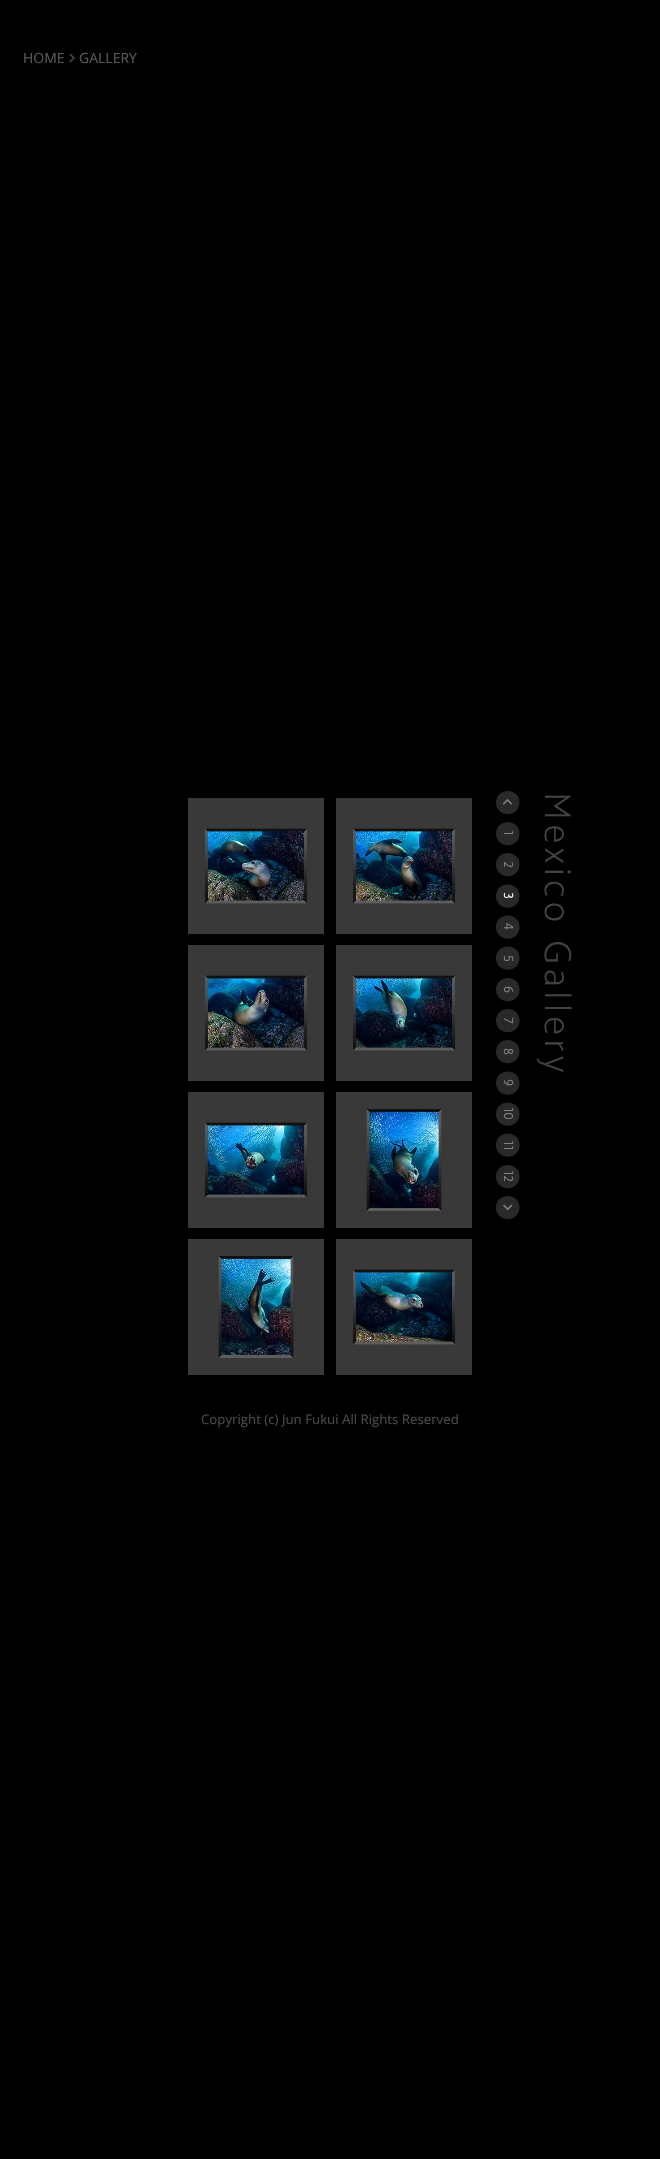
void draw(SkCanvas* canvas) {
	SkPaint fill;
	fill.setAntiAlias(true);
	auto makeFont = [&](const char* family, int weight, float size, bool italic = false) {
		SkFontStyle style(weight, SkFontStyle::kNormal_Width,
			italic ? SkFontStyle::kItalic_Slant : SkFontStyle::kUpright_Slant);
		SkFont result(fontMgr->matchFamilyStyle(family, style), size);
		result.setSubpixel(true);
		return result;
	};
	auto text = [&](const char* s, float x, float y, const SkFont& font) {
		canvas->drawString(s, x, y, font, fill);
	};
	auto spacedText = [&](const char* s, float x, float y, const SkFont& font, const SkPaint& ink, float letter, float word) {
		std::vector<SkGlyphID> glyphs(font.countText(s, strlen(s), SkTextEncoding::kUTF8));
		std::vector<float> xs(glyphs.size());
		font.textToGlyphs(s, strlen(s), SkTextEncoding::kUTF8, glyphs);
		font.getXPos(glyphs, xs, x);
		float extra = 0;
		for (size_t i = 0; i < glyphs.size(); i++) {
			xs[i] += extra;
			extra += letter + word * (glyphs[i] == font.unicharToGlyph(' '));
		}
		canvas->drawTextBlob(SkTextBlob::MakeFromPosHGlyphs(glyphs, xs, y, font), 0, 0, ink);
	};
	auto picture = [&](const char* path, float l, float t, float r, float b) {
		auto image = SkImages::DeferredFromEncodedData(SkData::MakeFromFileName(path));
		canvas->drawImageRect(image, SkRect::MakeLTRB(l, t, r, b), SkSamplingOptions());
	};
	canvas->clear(0xFF000000);
	picture("image0.png", 69, 53, 75, 63);
	picture("image1.png", 188, 798, 324, 934);
	picture("image2.png", 336, 798, 472, 934);
	picture("image3.png", 188, 945, 324, 1081);
	picture("image4.png", 336, 945, 472, 1081);
	picture("image5.png", 188, 1092, 324, 1228);
	picture("image6.png", 336, 1092, 472, 1228);
	picture("image7.png", 188, 1239, 324, 1375);
	picture("image8.png", 336, 1239, 472, 1375);
	fill.setColor(0xFF292929);
	canvas->drawPath(SkPathBuilder().moveTo(519.5f, 802.5f).cubicTo(519.5f, 818, 496, 818, 496, 802.5f).cubicTo(496, 787, 519.5f, 787, 519.5f, 802.5f).close().detach(), fill);
	picture("image9.png", 502, 799, 512, 805);
	canvas->drawPath(SkPathBuilder().moveTo(519.5f, 833.5f).cubicTo(519.5f, 849, 496, 849, 496, 833.5f).cubicTo(496, 818, 519.5f, 818, 519.5f, 833.5f).close().detach(), fill);
	canvas->drawPath(SkPathBuilder().moveTo(519.5f, 864.5f).cubicTo(519.5f, 880, 496, 880, 496, 864.5f).cubicTo(496, 849, 519.5f, 849, 519.5f, 864.5f).close().detach(), fill);
	canvas->drawPath(SkPathBuilder().moveTo(519.5f, 896).cubicTo(519.5f, 911.5f, 496, 911.5f, 496, 896).cubicTo(496, 880.5f, 519.5f, 880.5f, 519.5f, 896).close().detach(), fill);
	canvas->drawPath(SkPathBuilder().moveTo(519.5f, 927).cubicTo(519.5f, 942.5f, 496, 942.5f, 496, 927).cubicTo(496, 911.5f, 519.5f, 911.5f, 519.5f, 927).close().detach(), fill);
	canvas->drawPath(SkPathBuilder().moveTo(519.5f, 958).cubicTo(519.5f, 973.5f, 496, 973.5f, 496, 958).cubicTo(496, 942.5f, 519.5f, 942.5f, 519.5f, 958).close().detach(), fill);
	canvas->drawPath(SkPathBuilder().moveTo(519.5f, 989.5f).cubicTo(519.5f, 1005, 496, 1005, 496, 989.5f).cubicTo(496, 974, 519.5f, 974, 519.5f, 989.5f).close().detach(), fill);
	canvas->drawPath(SkPathBuilder().moveTo(519.5f, 1020.5f).cubicTo(519.5f, 1036, 496, 1036, 496, 1020.5f).cubicTo(496, 1005, 519.5f, 1005, 519.5f, 1020.5f).close().detach(), fill);
	canvas->drawPath(SkPathBuilder().moveTo(519.5f, 1051.5f).cubicTo(519.5f, 1067, 496, 1067, 496, 1051.5f).cubicTo(496, 1036, 519.5f, 1036, 519.5f, 1051.5f).close().detach(), fill);
	canvas->drawPath(SkPathBuilder().moveTo(519.5f, 1083).cubicTo(519.5f, 1098.5f, 496, 1098.5f, 496, 1083).cubicTo(496, 1067.5f, 519.5f, 1067.5f, 519.5f, 1083).close().detach(), fill);
	canvas->drawPath(SkPathBuilder().moveTo(519.5f, 1114).cubicTo(519.5f, 1129.5f, 496, 1129.5f, 496, 1114).cubicTo(496, 1098.5f, 519.5f, 1098.5f, 519.5f, 1114).close().detach(), fill);
	canvas->drawPath(SkPathBuilder().moveTo(519.5f, 1145).cubicTo(519.5f, 1160.5f, 496, 1160.5f, 496, 1145).cubicTo(496, 1129.5f, 519.5f, 1129.5f, 519.5f, 1145).close().detach(), fill);
	canvas->drawPath(SkPathBuilder().moveTo(519.5f, 1176.5f).cubicTo(519.5f, 1192, 496, 1192, 496, 1176.5f).cubicTo(496, 1161, 519.5f, 1161, 519.5f, 1176.5f).close().detach(), fill);
	canvas->drawPath(SkPathBuilder().moveTo(519.5f, 1207.5f).cubicTo(519.5f, 1223, 496, 1223, 496, 1207.5f).cubicTo(496, 1192, 519.5f, 1192, 519.5f, 1207.5f).close().detach(), fill);
	picture("image10.png", 503, 1204, 513, 1211);
	auto font1 = makeFont("Open Sans", 400, 14);
	fill.setColor(0xFF5A5A5A);
	text("HOME", 23, 63, font1);
	text("GALLERY", 79, 63, font1);
	auto font2 = makeFont("Duru Sans", 400, 12);
	fill.setColor(0xFF828282);
	canvas->save();
	canvas->rotate(90, 504, 830);
	spacedText("1", 504, 830, font2, fill, -1, 0);
	canvas->restore();
	canvas->save();
	canvas->rotate(90, 504, 861);
	spacedText("2", 504, 861, font2, fill, -1, 0);
	canvas->restore();
	fill.setColor(0xFFFFFFFF);
	canvas->save();
	canvas->rotate(90, 504, 892);
	spacedText("3", 504, 892, font2, fill, -1, 0);
	canvas->restore();
	fill.setColor(0xFF828282);
	canvas->save();
	canvas->rotate(90, 504, 923);
	spacedText("4", 504, 923, font2, fill, -1, 0);
	canvas->restore();
	canvas->save();
	canvas->rotate(90, 504, 955);
	spacedText("5", 504, 955, font2, fill, -1, 0);
	canvas->restore();
	canvas->save();
	canvas->rotate(90, 504, 986);
	spacedText("6", 504, 986, font2, fill, -1, 0);
	canvas->restore();
	canvas->save();
	canvas->rotate(90, 504, 1017);
	spacedText("7", 504, 1017, font2, fill, -1, 0);
	canvas->restore();
	canvas->save();
	canvas->rotate(90, 504, 1048);
	spacedText("8", 504, 1048, font2, fill, -1, 0);
	canvas->restore();
	canvas->save();
	canvas->rotate(90, 504, 1079);
	spacedText("9", 504, 1079, font2, fill, -1, 0);
	canvas->restore();
	canvas->save();
	canvas->rotate(90, 504, 1107);
	spacedText("10", 504, 1107, font2, fill, -1, 0);
	canvas->restore();
	canvas->save();
	canvas->rotate(90, 504, 1140);
	spacedText("11", 504, 1140, font2, fill, -1, 0);
	canvas->restore();
	canvas->save();
	canvas->rotate(90, 504, 1170);
	spacedText("12", 504, 1170, font2, fill, -1, 0);
	canvas->restore();
	auto font3 = makeFont("Catamaran", 100, 37.75f);
	fill.setColor(0xFF424242);
	canvas->save();
	canvas->rotate(90, 545, 792);
	spacedText("Mexico Gallery", 545, 792, font3, fill, 4.75f, 0);
	canvas->restore();
	auto font4 = makeFont("Open Sans", 400, 13.25f);
	fill.setColor(0xFF4A4A4A);
	text("Copyright (c) Jun Fukui All Rights Reserved", 201, 1424, font4);
}
